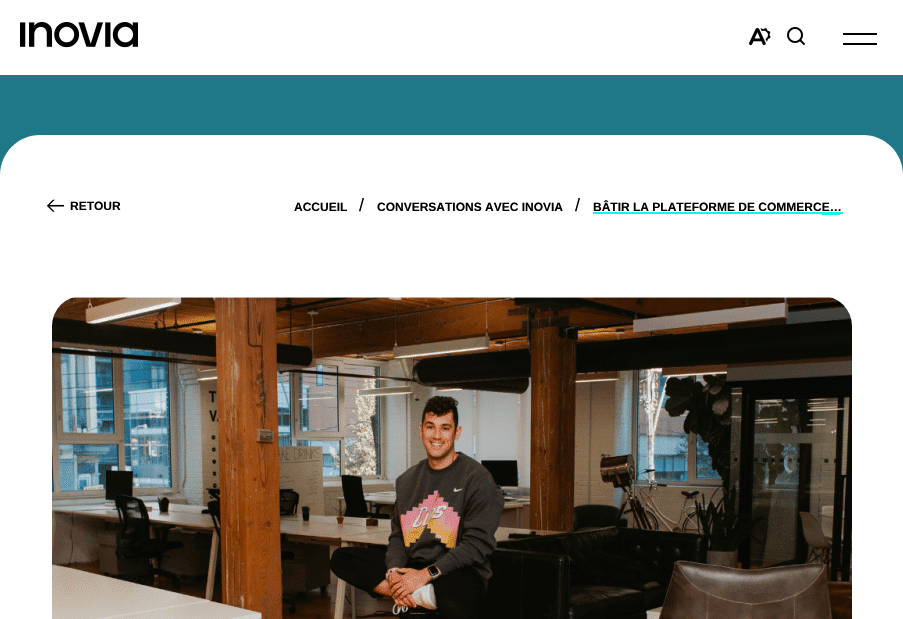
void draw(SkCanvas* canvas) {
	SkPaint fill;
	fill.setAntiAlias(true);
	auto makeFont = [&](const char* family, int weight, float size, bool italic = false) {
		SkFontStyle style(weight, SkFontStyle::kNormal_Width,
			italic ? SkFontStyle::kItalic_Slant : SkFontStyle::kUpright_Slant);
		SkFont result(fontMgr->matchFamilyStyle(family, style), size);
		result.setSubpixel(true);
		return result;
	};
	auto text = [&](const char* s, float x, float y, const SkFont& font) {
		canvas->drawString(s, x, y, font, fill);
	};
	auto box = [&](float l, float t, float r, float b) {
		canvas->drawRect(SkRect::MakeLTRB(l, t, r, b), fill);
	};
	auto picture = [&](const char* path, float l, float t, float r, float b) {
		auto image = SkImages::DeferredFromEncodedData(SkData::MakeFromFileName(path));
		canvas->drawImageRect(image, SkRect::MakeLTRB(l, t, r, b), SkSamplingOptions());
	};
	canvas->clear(0xFF1F7887);
	fill.setColor(0xFFFFFFFF);
	box(0, 0, 903, 75);
	picture("image0.png", 20, 22, 138, 48);
	picture("image1.png", 749, 28, 771, 46);
	picture("image2.png", 787, 27, 805, 45);
	fill.setColor(0xFF000000);
	box(843, 43, 877, 45);
	box(843, 33, 877, 35);
	fill.setColor(0xFFFFFFFF);
	canvas->drawPath(SkPathBuilder().moveTo(40, 135).lineTo(863, 135).cubicTo(885, 135, 903, 153, 903, 175).lineTo(903, 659).lineTo(0, 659).lineTo(0, 175).cubicTo(0, 153, 18, 135, 40, 135).close().detach(), fill);
	picture("image3.png", 46, 199, 64, 212);
	fill.setColor(0xFF00FFF1);
	box(593, 212, 843, 214);
	box(822, 214, 840, 215);
	picture("image4.png", 52, 297, 852, 619);
	auto font1 = makeFont("Liberation Sans", 700, 12);
	fill.setColor(0xFF000000);
	text("RETOUR", 70, 210, font1);
	text("ACCUEIL", 294, 211, font1);
	auto font2 = makeFont("Liberation Sans", 400, 18);
	text("/", 359, 211, font2);
	text("CONVERSATIONS AVEC INOVIA", 377, 211, font1);
	text("/", 575, 211, font2);
	text("BÂTIR LA PLATEFORME DE COMMERCE…", 593, 211, font1);
}
